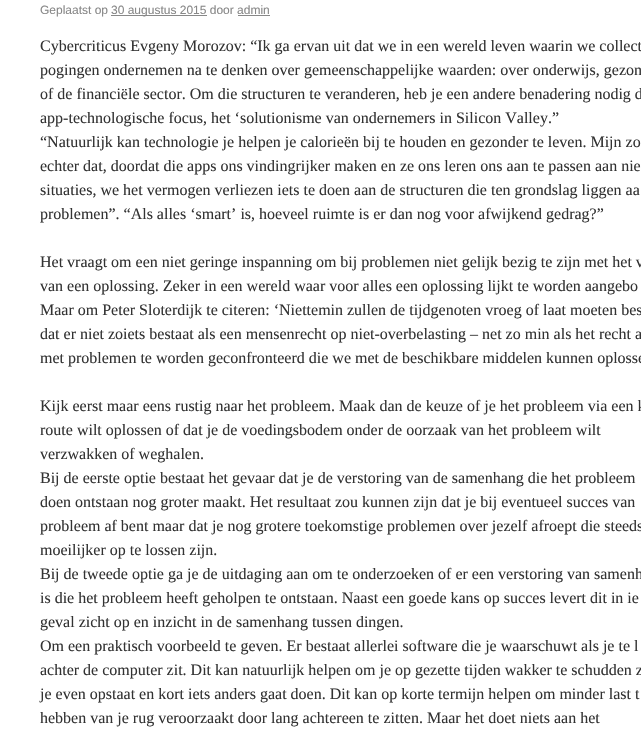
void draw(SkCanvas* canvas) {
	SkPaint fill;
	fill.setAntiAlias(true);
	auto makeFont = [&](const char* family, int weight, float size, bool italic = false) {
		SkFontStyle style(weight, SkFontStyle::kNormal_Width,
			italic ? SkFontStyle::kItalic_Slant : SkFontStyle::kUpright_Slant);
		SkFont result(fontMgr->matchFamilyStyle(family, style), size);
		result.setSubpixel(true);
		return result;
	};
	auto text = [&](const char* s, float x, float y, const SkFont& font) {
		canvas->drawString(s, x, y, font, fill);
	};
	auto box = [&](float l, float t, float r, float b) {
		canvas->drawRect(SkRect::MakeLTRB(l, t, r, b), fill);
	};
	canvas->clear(0xFFFFFFFF);
	fill.setColor(0xFF888888);
	box(111, 15, 207, 16);
	box(238, 15, 270, 16);
	auto font1 = makeFont("Liberation Sans", 400, 12);
	text("Geplaatst op", 40, 14, font1);
	text("30 augustus 2015 door admin", 111, 14, font1);
	auto font2 = makeFont("Liberation Serif", 400, 16);
	fill.setColor(0xFF333333);
	text("Cybercriticus Evgeny Morozov: “Ik ga ervan uit dat we in een wereld leven waarin we collect", 40, 51, font2);
	text("pogingen ondernemen na te denken over gemeenschappelijke waarden: over onderwijs, gezon", 40, 75, font2);
	text("of de financiële sector. Om die structuren te veranderen, heb je een andere benadering nodig d", 40, 99, font2);
	text("app-technologische focus, het ‘solutionisme van ondernemers in Silicon Valley.”", 40, 123, font2);
	text("“Natuurlijk kan technologie je helpen je calorieën bij te houden en gezonder te leven. Mijn zo", 40, 147, font2);
	text("echter dat, doordat die apps ons vindingrijker maken en ze ons leren ons aan te passen aan nie", 40, 171, font2);
	text("situaties, we het vermogen verliezen iets te doen aan de structuren die ten grondslag liggen aa", 40, 195, font2);
	text("problemen”. “Als alles ‘smart’ is, hoeveel ruimte is er dan nog voor afwijkend gedrag?”", 40, 219, font2);
	text("Het vraagt om een niet geringe inspanning om bij problemen niet gelijk bezig te zijn met het v", 40, 267, font2);
	text("van een oplossing. Zeker in een wereld waar voor alles een oplossing lijkt te worden aangebo", 40, 291, font2);
	text("Maar om Peter Sloterdijk te citeren: ‘Niettemin zullen de tijdgenoten vroeg of laat moeten bes", 40, 315, font2);
	text("dat er niet zoiets bestaat als een mensenrecht op niet-overbelasting – net zo min als het recht a", 40, 339, font2);
	text("met problemen te worden geconfronteerd die we met de beschikbare middelen kunnen oplosse", 40, 363, font2);
	text("Kijk eerst maar eens rustig naar het probleem. Maak dan de keuze of je het probleem via een k", 40, 411, font2);
	text("route wilt oplossen of dat je de voedingsbodem onder de oorzaak van het probleem wilt", 40, 435, font2);
	text("verzwakken of weghalen.", 40, 459, font2);
	text("Bij de eerste optie bestaat het gevaar dat je de verstoring van de samenhang die het probleem", 40, 483, font2);
	text("doen ontstaan nog groter maakt. Het resultaat zou kunnen zijn dat je bij eventueel succes van", 40, 507, font2);
	text("probleem af bent maar dat je nog grotere toekomstige problemen over jezelf afroept die steeds", 40, 531, font2);
	text("moeilijker op te lossen zijn.", 40, 555, font2);
	text("Bij de tweede optie ga je de uitdaging aan om te onderzoeken of er een verstoring van samenh", 40, 579, font2);
	text("is die het probleem heeft geholpen te ontstaan. Naast een goede kans op succes levert dit in ie", 40, 603, font2);
	text("geval zicht op en inzicht in de samenhang tussen dingen.", 40, 627, font2);
	text("Om een praktisch voorbeeld te geven. Er bestaat allerlei software die je waarschuwt als je te l", 40, 651, font2);
	text("achter de computer zit. Dit kan natuurlijk helpen om je op gezette tijden wakker te schudden z", 40, 675, font2);
	text("je even opstaat en kort iets anders gaat doen. Dit kan op korte termijn helpen om minder last t", 40, 699, font2);
	text("hebben van je rug veroorzaakt door lang achtereen te zitten. Maar het doet niets aan het", 40, 723, font2);
}
